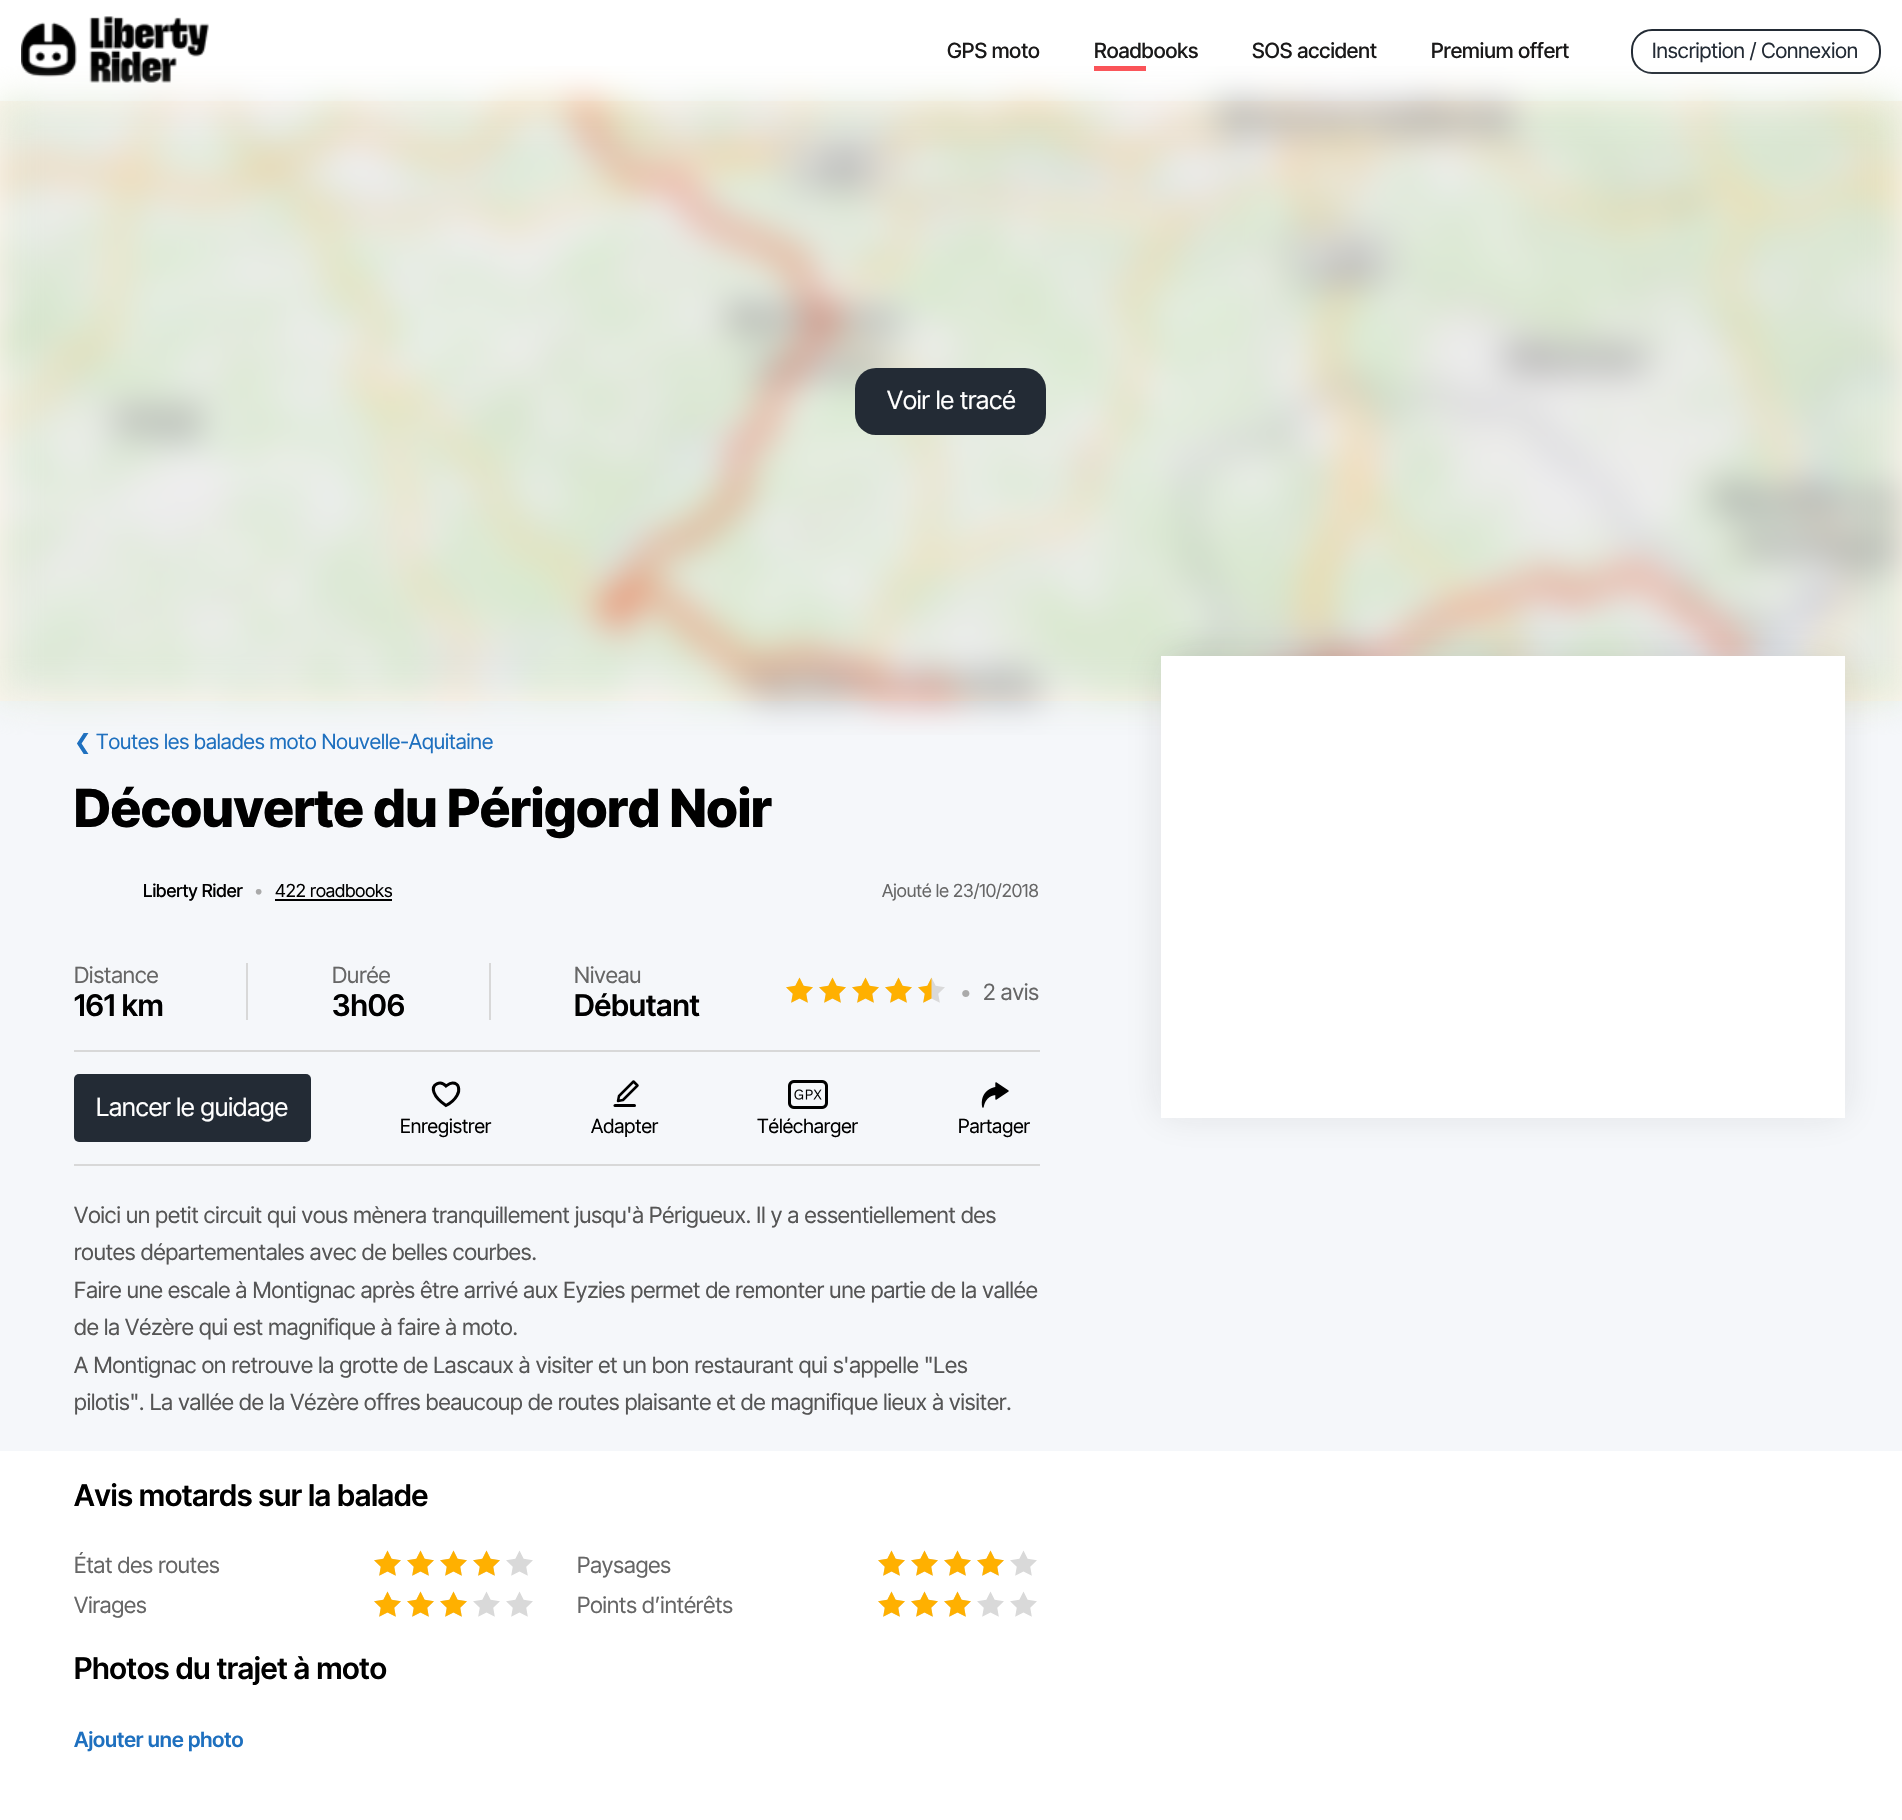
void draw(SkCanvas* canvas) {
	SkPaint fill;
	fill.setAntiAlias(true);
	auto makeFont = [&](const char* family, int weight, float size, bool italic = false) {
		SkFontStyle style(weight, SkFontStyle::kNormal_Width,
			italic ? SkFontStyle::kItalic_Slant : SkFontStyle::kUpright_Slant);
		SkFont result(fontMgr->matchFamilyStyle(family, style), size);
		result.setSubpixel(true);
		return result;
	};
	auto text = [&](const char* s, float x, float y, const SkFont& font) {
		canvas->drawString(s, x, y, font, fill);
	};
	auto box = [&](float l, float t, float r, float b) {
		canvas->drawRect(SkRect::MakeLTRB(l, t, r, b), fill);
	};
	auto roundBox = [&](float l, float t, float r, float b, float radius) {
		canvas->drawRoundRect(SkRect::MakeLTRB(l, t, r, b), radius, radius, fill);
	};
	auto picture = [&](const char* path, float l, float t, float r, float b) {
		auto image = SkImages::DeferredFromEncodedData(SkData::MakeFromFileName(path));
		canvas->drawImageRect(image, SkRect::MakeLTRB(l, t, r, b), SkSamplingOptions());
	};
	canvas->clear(0xFFFFFFFF);
	picture("image0.png", 21, 16, 209, 83);
	fill.setColor(0xFFFB4F54);
	box(1094, 66, 1146, 71);
	fill.setStyle(SkPaint::kStroke_Style);
	fill.setStrokeWidth(2);
	fill.setColor(0xFF232B35);
	canvas->drawRoundRect(SkRect::MakeLTRB(1632, 30, 1880, 73), 20, 20, fill);
	fill.setStyle(SkPaint::kFill_Style);
	fill.setColor(0xFFFEF6EE);
	box(0, 101, 1902, 701);
	fill.setColor(0xFFF5F7FA);
	box(0, 701, 1902, 1451);
	fill.setColor(0xFF000000);
	box(275, 899, 392, 901);
	fill.setColor(0xFFD8D8D8);
	box(246, 963, 248, 1020);
	box(489, 963, 491, 1020);
	picture("image3.png", 786, 978, 945, 1003);
	picture("image2.png", 786, 977, 932, 1003);
	box(74, 1050, 1040, 1052);
	box(74, 1164, 1040, 1166);
	fill.setColor(0xFF232B35);
	roundBox(74, 1074, 311, 1142, 5);
	fill.setStyle(SkPaint::kStroke_Style);
	fill.setStrokeWidth(3);
	fill.setColor(0xFF000000);
	canvas->drawPath(SkPathBuilder().moveTo(452.5f, 1083).cubicTo(449.5f, 1083, 447.5f, 1085, 446, 1086).cubicTo(440.5f, 1080, 431, 1084, 434, 1092.5f).cubicTo(436, 1098, 441.5f, 1102.5f, 446, 1105.5f).cubicTo(450, 1103.5f, 455, 1099, 457, 1095.5f).cubicTo(460, 1090.5f, 459.5f, 1083, 452.5f, 1083).close().detach(), fill);
	fill.setStrokeWidth(2.5f);
	fill.setStrokeJoin(SkPaint::kRound_Join);
	canvas->drawPath(SkPathBuilder().moveTo(619, 1096).lineTo(633.5f, 1081.5f).lineTo(637.5f, 1085.5f).lineTo(623, 1100).lineTo(618, 1101).close().detach(), fill);
	fill.setStrokeWidth(3);
	fill.setStrokeCap(SkPaint::kRound_Cap);
	canvas->drawPath(SkPathBuilder().moveTo(615, 1105.5f).lineTo(634.5f, 1105.5f).detach(), fill);
	picture("image4.png", 788, 1080, 828, 1109);
	picture("image5.png", 981, 1082, 1009, 1108);
	picture("image6.png", 374, 1550, 533, 1576);
	picture("image7.png", 374, 1550, 500, 1576);
	picture("image6.png", 878, 1550, 1037, 1576);
	picture("image7.png", 878, 1550, 1004, 1576);
	picture("image6.png", 374, 1591, 533, 1617);
	picture("image8.png", 374, 1591, 467, 1617);
	picture("image6.png", 878, 1591, 1037, 1617);
	picture("image8.png", 878, 1591, 971, 1617);
	auto font1 = makeFont("Inter Tight", 500, 21);
	fill.setStyle(SkPaint::kFill_Style);
	fill.setColor(0xFF1A1919);
	text("GPS moto", 947, 58, font1);
	text("Roadbooks", 1094, 58, font1);
	text("SOS accident", 1252, 58, font1);
	text("Premium offert", 1431, 58, font1);
	auto font2 = makeFont("Inter Tight", 400, 21);
	fill.setColor(0xFF232B35);
	text("Inscription / Connexion", 1652, 58, font2);
	auto font3 = makeFont("DejaVu Sans", 400, 21);
	fill.setColor(0xFF1E70BF);
	text("❮", 74, 749, font3);
	text("Toutes les balades moto Nouvelle-Aquitaine", 96, 749, font2);
	picture("image1.png", 0, 66, 1902, 735);
	fill.setColor(0xFF232B35);
	roundBox(855, 368, 1046, 435, 21);
	auto font4 = makeFont("Inter Tight", 400, 25.25f);
	fill.setColor(0xFFFFFFFF);
	text("Voir le tracé", 887, 409, font4);
	auto font5 = makeFont("Inter Tight", 800, 52.5f);
	fill.setColor(0xFF000000);
	text("Découverte du Périgord Noir", 74, 827, font5);
	auto font6 = makeFont("Inter Tight", 500, 18);
	text("Liberty Rider", 143, 897, font6);
	auto font7 = makeFont("Inter Tight", 400, 18);
	fill.setColor(0xFFAAAAAA);
	text("•", 254, 897, font7);
	fill.setColor(0xFF000000);
	text("422 roadbooks", 275, 897, font7);
	fill.setColor(0xFF666666);
	text("Ajouté le 23/10/2018", 882, 897, font7);
	auto font8 = makeFont("Inter Tight", 400, 22.5f);
	text("Distance", 74, 983, font8);
	auto font9 = makeFont("Inter Tight", 600, 30);
	fill.setColor(0xFF000000);
	text("161 km", 74, 1016, font9);
	fill.setColor(0xFF666666);
	text("Durée", 332, 983, font8);
	fill.setColor(0xFF000000);
	text("3h06", 332, 1016, font9);
	fill.setColor(0xFF666666);
	text("Niveau", 574, 983, font8);
	fill.setColor(0xFF000000);
	text("Débutant", 574, 1016, font9);
	fill.setColor(0xFFAAAAAA);
	text("•", 960, 1000, font8);
	fill.setColor(0xFF666666);
	text("2 avis", 983, 1000, font8);
	fill.setColor(0xFFFFFFFF);
	text("Lancer le guidage", 96, 1116, font4);
	auto font10 = makeFont("Inter Tight", 400, 19.5f);
	fill.setColor(0xFF000000);
	text("Enregistrer", 400, 1133, font10);
	text("Adapter", 591, 1133, font10);
	text("Télécharger", 757, 1133, font10);
	text("Partager", 958, 1133, font10);
	fill.setColor(0xFF555555);
	text("Voici un petit circuit qui vous mènera tranquillement jusqu'à Périgueux. Il y a essentiellement des", 74, 1223, font8);
	text("routes départementales avec de belles courbes.", 74, 1260, font8);
	text("Faire une escale à Montignac après être arrivé aux Eyzies permet de remonter une partie de la vallée", 74, 1298, font8);
	text("de la Vézère qui est magnifique à faire à moto.", 74, 1335, font8);
	text("A Montignac on retrouve la grotte de Lascaux à visiter et un bon restaurant qui s'appelle \"Les", 74, 1373, font8);
	text("pilotis\". La vallée de la Vézère offres beaucoup de routes plaisante et de magnifique lieux à visiter.", 74, 1410, font8);
	fill.setColor(0x1A1B1A1A);
	fill.setMaskFilter(SkMaskFilter::MakeBlur(kNormal_SkBlurStyle, 18));
	canvas->drawRect(SkRect::MakeLTRB(1161, 653, 1845, 1115), fill);
	fill.setMaskFilter(nullptr);
	fill.setColor(0xFFFFFFFF);
	box(1161, 656, 1845, 1118);
	fill.setColor(0xFF000000);
	text("Avis motards sur la balade", 74, 1506, font9);
	fill.setColor(0xFF666666);
	text("État des routes", 74, 1573, font8);
	text("Paysages", 577, 1573, font8);
	text("Virages", 74, 1613, font8);
	text("Points d’intérêts", 577, 1613, font8);
	fill.setColor(0xFF000000);
	text("Photos du trajet à moto", 74, 1679, font9);
	auto font11 = makeFont("Inter Tight", 600, 21);
	fill.setColor(0xFF1E70BF);
	text("Ajouter une photo", 74, 1747, font11);
}
